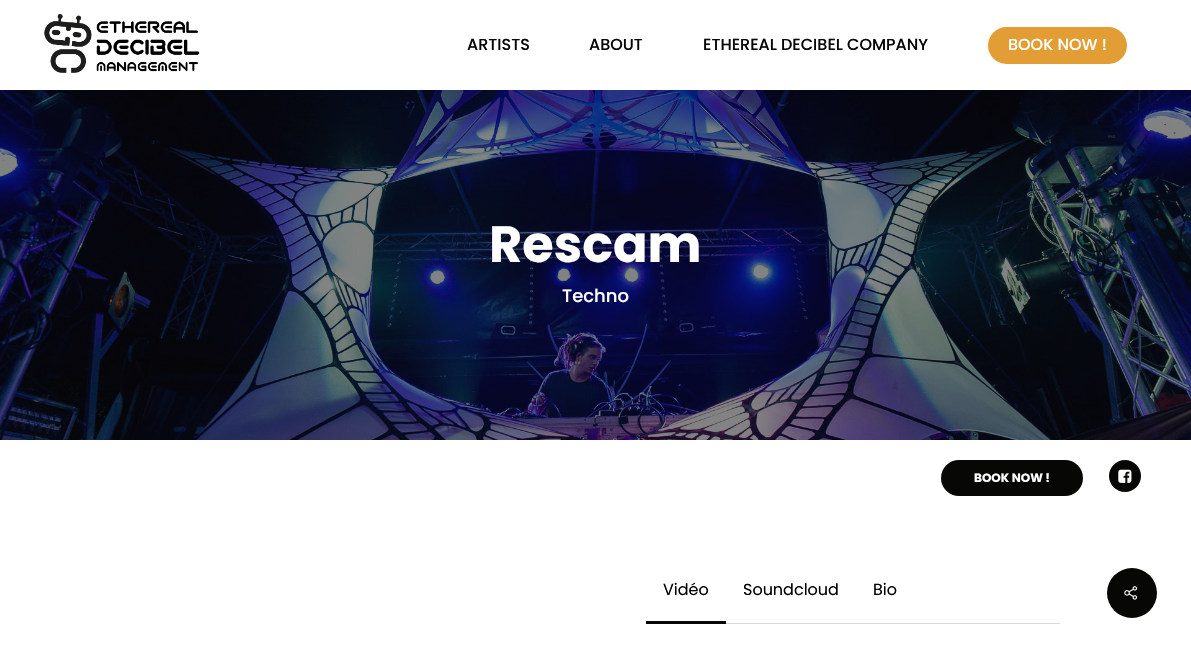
void draw(SkCanvas* canvas) {
	SkPaint fill;
	fill.setAntiAlias(true);
	auto makeFont = [&](const char* family, int weight, float size, bool italic = false) {
		SkFontStyle style(weight, SkFontStyle::kNormal_Width,
			italic ? SkFontStyle::kItalic_Slant : SkFontStyle::kUpright_Slant);
		SkFont result(fontMgr->matchFamilyStyle(family, style), size);
		result.setSubpixel(true);
		return result;
	};
	auto text = [&](const char* s, float x, float y, const SkFont& font) {
		canvas->drawString(s, x, y, font, fill);
	};
	auto box = [&](float l, float t, float r, float b) {
		canvas->drawRect(SkRect::MakeLTRB(l, t, r, b), fill);
	};
	auto roundBox = [&](float l, float t, float r, float b, float radius) {
		canvas->drawRoundRect(SkRect::MakeLTRB(l, t, r, b), radius, radius, fill);
	};
	auto picture = [&](const char* path, float l, float t, float r, float b) {
		auto image = SkImages::DeferredFromEncodedData(SkData::MakeFromFileName(path));
		canvas->drawImageRect(image, SkRect::MakeLTRB(l, t, r, b), SkSamplingOptions());
	};
	canvas->clear(0xFFFFFFFF);
	picture("image0.png", 44, 14, 200, 73);
	fill.setColor(0xFFE29D34);
	roundBox(988, 27, 1127, 64, 18.5f);
	picture("image1.png", 0, 90, 1191, 440);
	fill.setColor(0xFF070706);
	roundBox(941, 460, 1083, 496, 18);
	canvas->drawCircle(1125, 476, 16, fill);
	picture("image2.png", 1118, 469, 1132, 483);
	fill.setColor(0xFFD9D9D9);
	box(726, 623, 1060, 624);
	fill.setColor(0xFF070706);
	box(646, 621, 726, 624);
	canvas->drawCircle(1132, 593, 25, fill);
	picture("image3.png", 1124, 586, 1137, 600);
	auto font1 = makeFont("Poppins", 500, 16);
	text("ARTISTS", 467, 50, font1);
	text("ABOUT", 589, 50, font1);
	text("ETHEREAL DECIBEL COMPANY", 703, 50, font1);
	fill.setColor(0xFFFFFFFF);
	text("BOOK NOW !", 1008, 50, font1);
	auto font2 = makeFont("Poppins", 700, 51);
	text("Rescam", 489, 262, font2);
	auto font3 = makeFont("Poppins", 500, 18);
	text("Techno", 562, 302, font3);
	auto font4 = makeFont("Poppins", 700, 12);
	text("BOOK NOW !", 974, 482, font4);
	auto font5 = makeFont("Poppins", 400, 16);
	fill.setColor(0xFF000000);
	text("Vidéo", 663, 595, font5);
	text("Soundcloud", 743, 595, font5);
	text("Bio", 873, 595, font5);
}
